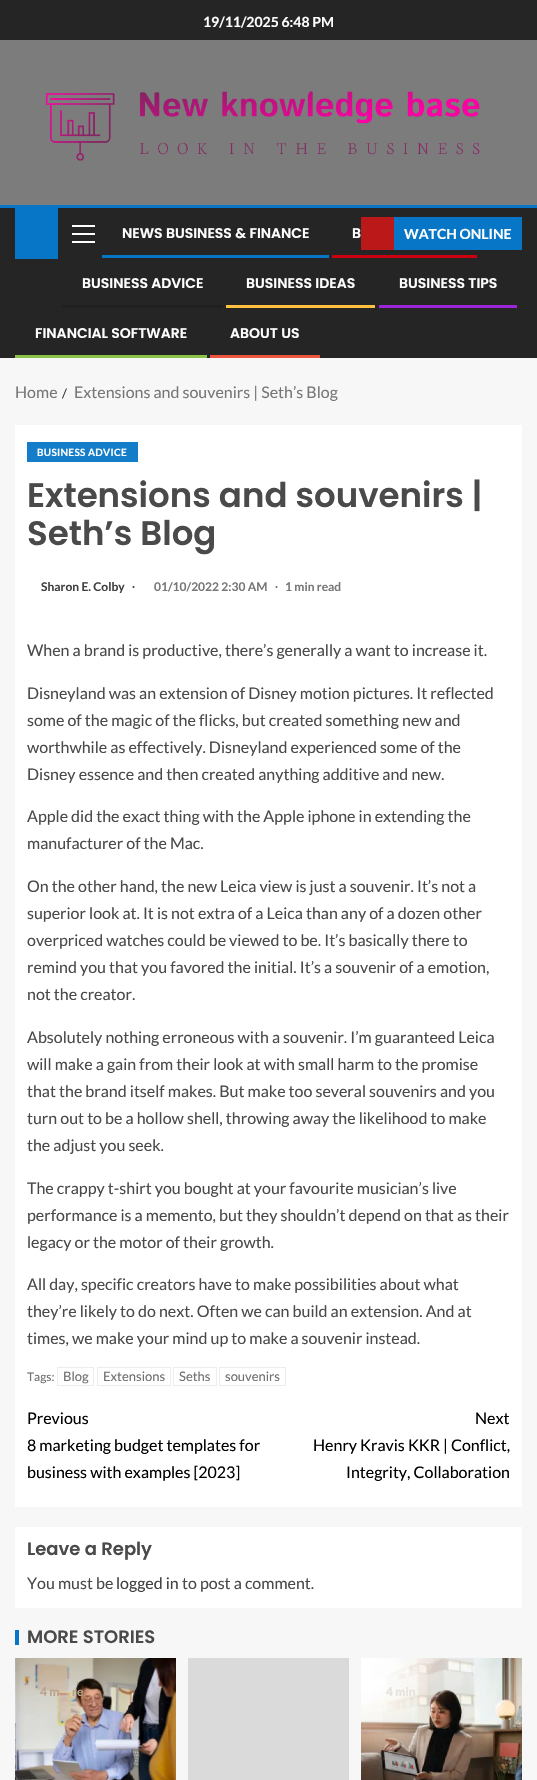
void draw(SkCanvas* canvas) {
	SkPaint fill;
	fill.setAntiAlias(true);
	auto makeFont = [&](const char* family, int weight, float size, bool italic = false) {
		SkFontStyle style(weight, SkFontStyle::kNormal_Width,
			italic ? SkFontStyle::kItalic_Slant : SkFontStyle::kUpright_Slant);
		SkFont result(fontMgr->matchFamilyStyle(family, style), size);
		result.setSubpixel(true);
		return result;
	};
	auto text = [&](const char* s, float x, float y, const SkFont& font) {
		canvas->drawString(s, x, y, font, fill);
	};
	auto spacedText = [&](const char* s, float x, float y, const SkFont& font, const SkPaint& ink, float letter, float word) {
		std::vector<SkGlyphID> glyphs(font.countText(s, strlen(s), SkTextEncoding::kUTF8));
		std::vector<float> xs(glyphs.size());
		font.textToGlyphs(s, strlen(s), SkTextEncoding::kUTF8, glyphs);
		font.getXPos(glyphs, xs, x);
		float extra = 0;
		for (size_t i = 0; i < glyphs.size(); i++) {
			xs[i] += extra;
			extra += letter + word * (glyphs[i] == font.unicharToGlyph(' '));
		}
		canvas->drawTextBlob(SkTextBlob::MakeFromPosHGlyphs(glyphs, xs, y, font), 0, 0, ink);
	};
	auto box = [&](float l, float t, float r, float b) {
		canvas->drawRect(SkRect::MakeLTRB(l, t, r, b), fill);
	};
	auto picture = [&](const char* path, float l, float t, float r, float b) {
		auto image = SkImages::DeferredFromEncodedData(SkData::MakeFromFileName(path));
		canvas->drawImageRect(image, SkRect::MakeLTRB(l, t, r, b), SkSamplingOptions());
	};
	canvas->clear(0xFFF7F7F7);
	fill.setColor(0xFF252525);
	box(0, 0, 537, 40);
	fill.setColor(0xFF7C7C7C);
	box(0, 40, 537, 205);
	picture("image0.png", 45, 91, 480, 161);
	fill.setColor(0xFF252525);
	box(0, 208, 537, 358);
	fill.setColor(0xFF0776C6);
	box(0, 205, 537, 208);
	box(15, 208, 58, 259);
	fill.setColor(0xFFFFFFFF);
	box(72, 233, 95, 235);
	box(72, 225, 95, 227);
	box(72, 241, 95, 243);
	fill.setColor(0xFF0776C6);
	box(102, 255, 329, 258);
	fill.setColor(0xFFCC0010);
	box(332, 255, 477, 258);
	fill.setColor(0xFF202020);
	box(62, 305, 223, 308);
	fill.setColor(0xFFFFBF3F);
	box(226, 305, 375, 308);
	fill.setColor(0xFF9C27D9);
	box(379, 305, 517, 308);
	fill.setColor(0xFF8BC34A);
	box(15, 355, 207, 358);
	fill.setColor(0xFFED553F);
	box(210, 355, 320, 358);
	fill.setColor(0xFFBB1919);
	box(361, 217, 394, 250);
	fill.setColor(0xFF0776C6);
	box(394, 217, 522, 250);
	fill.setColor(0xFFFFFFFF);
	box(15, 425, 522, 1507);
	fill.setColor(0xFF137DC9);
	box(27, 442, 138, 462);
	fill.setStyle(SkPaint::kStroke_Style);
	fill.setStrokeWidth(1);
	fill.setColor(0xFFECECEC);
	canvas->drawRect(SkRect::MakeLTRB(57.5f, 1367.5f, 93.5f, 1385.5f), fill);
	canvas->drawRect(SkRect::MakeLTRB(97.5f, 1367.5f, 170.5f, 1385.5f), fill);
	canvas->drawRect(SkRect::MakeLTRB(173.5f, 1367.5f, 216.5f, 1385.5f), fill);
	canvas->drawRect(SkRect::MakeLTRB(219.5f, 1367.5f, 285.5f, 1385.5f), fill);
	fill.setStyle(SkPaint::kFill_Style);
	fill.setColor(0xFFFFFFFF);
	box(15, 1527, 522, 1608);
	fill.setColor(0xFF0776C6);
	box(15, 1630, 19, 1645);
	picture("image1.png", 15, 1658, 176, 1780);
	fill.setColor(0xFFDADADA);
	box(188, 1658, 349, 1780);
	picture("image2.png", 361, 1658, 522, 1780);
	auto font1 = makeFont("Lato", 700, 14);
	fill.setColor(0xFFFFFFFF);
	text("19/11/2025 6:48 PM", 203, 27, font1);
	auto font2 = makeFont("Poppins", 600, 14);
	text("NEWS BUSINESS & FINANCE", 122, 238, font2);
	text("B", 352, 238, font2);
	text("BUSINESS ADVICE", 82, 288, font2);
	text("BUSINESS IDEAS", 246, 288, font2);
	text("BUSINESS TIPS", 399, 288, font2);
	text("FINANCIAL SOFTWARE", 35, 338, font2);
	text("ABOUT US", 230, 338, font2);
	text("WATCH ONLINE", 404, 239, font1);
	auto font3 = makeFont("Lato", 400, 16);
	fill.setColor(0xFF777777);
	text("Home", 15, 398, font3);
	auto font4 = makeFont("Lato", 400, 13);
	fill.setColor(0xFF393E46);
	text("/", 62, 398, font4);
	fill.setColor(0xFF777777);
	text("Extensions and souvenirs | Seth’s Blog", 74, 398, font3);
	auto font5 = makeFont("Lato", 700, 10);
	fill.setColor(0xFFFFFFFF);
	spacedText("BUSINESS ADVICE", 37, 456, font5, fill, 0.3f, 0);
	auto font6 = makeFont("Poppins", 600, 34);
	fill.setColor(0xFF4A4A4A);
	text("Extensions and souvenirs |", 27, 507, font6);
	text("Seth’s Blog", 27, 545, font6);
	auto font7 = makeFont("Lato", 700, 12);
	fill.setColor(0xFF404040);
	text("Sharon E. Colby", 41, 591, font7);
	auto font8 = makeFont("Liberation Serif", 700, 12);
	fill.setColor(0xFF4A4A4A);
	text("∙", 132, 591, font8);
	fill.setColor(0xFF777777);
	text("01/10/2022 2:30 AM", 154, 591, font7);
	text("∙", 275, 591, font8);
	text("1 min read", 285, 591, font7);
	fill.setColor(0xFF4A4A4A);
	text("When a brand is productive, there’s generally a want to increase it.", 27, 656, font3);
	text("Disneyland was an extension of Disney motion pictures. It reflected", 27, 699, font3);
	text("some of the magic of the flicks, but created something new and", 27, 726, font3);
	text("worthwhile as effectively. Disneyland experienced some of the", 27, 753, font3);
	text("Disney essence and then created anything additive and new.", 27, 780, font3);
	text("Apple did the exact thing with the Apple iphone in extending the", 27, 822, font3);
	text("manufacturer of the Mac.", 27, 849, font3);
	text("On the other hand, the new Leica view is just a souvenir. It’s not a", 27, 892, font3);
	text("superior look at. It is not extra of a Leica than any of a dozen other", 27, 919, font3);
	text("overpriced watches could be viewed to be. It’s basically there to", 27, 946, font3);
	text("remind you that you favored the initial. It’s a souvenir of a emotion,", 27, 973, font3);
	text("not the creator.", 27, 1000, font3);
	text("Absolutely nothing erroneous with a souvenir. I’m guaranteed Leica", 27, 1043, font3);
	text("will make a gain from their look at with small harm to the promise", 27, 1070, font3);
	text("that the brand itself makes. But make too several souvenirs and you", 27, 1097, font3);
	text("turn out to be a hollow shell, throwing away the likelihood to make", 27, 1124, font3);
	text("the adjust you seek.", 27, 1151, font3);
	text("The crappy t-shirt you bought at your favourite musician’s live", 27, 1194, font3);
	text("performance is a memento, but they shouldn’t depend on that as their", 27, 1221, font3);
	text("legacy or the motor of their growth.", 27, 1248, font3);
	text("All day, specific creators have to make possibilities about what", 27, 1290, font3);
	text("they’re likely to do next. Often we can build an extension. And at", 27, 1317, font3);
	text("times, we make your mind up to make a souvenir instead.", 27, 1344, font3);
	auto font9 = makeFont("Lato", 400, 12);
	fill.setColor(0xFF707070);
	text("Tags:", 27, 1381, font9);
	text("Blog", 63, 1381, font4);
	text("Extensions", 103, 1381, font4);
	text("Seths", 179, 1381, font4);
	text("souvenirs", 225, 1381, font4);
	fill.setColor(0xFF000000);
	text("Previous", 27, 1424, font3);
	text("8 marketing budget templates for", 27, 1451, font3);
	text("business with examples [2023]", 27, 1478, font3);
	text("Next", 475, 1424, font3);
	text("Henry Kravis KKR | Conflict,", 313, 1451, font3);
	text("Integrity, Collaboration", 346, 1478, font3);
	auto font10 = makeFont("Poppins", 600, 18);
	fill.setColor(0xFF4A4A4A);
	text("Leave a Reply", 27, 1555, font10);
	text("You must be", 27, 1589, font3);
	fill.setColor(0xFF404040);
	text("logged in", 116, 1589, font3);
	fill.setColor(0xFF4A4A4A);
	text("to post a comment.", 182, 1589, font3);
	text("MORE STORIES", 27, 1643, font10);
	fill.setColor(0xFFB9A08B);
	text("4 m", 40, 1696, font7);
	text("re", 72, 1696, font7);
	fill.setColor(0xFFE5E1DC);
	text("4 min", 386, 1696, font7);
}
